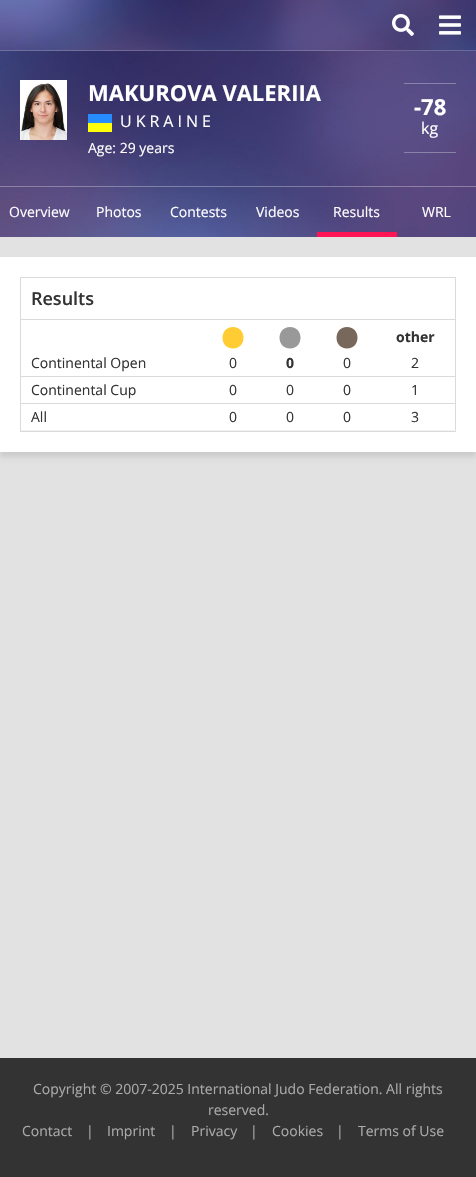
void draw(SkCanvas* canvas) {
	SkPaint fill;
	fill.setAntiAlias(true);
	auto makeFont = [&](const char* family, int weight, float size, bool italic = false) {
		SkFontStyle style(weight, SkFontStyle::kNormal_Width,
			italic ? SkFontStyle::kItalic_Slant : SkFontStyle::kUpright_Slant);
		SkFont result(fontMgr->matchFamilyStyle(family, style), size);
		result.setSubpixel(true);
		return result;
	};
	auto text = [&](const char* s, float x, float y, const SkFont& font) {
		canvas->drawString(s, x, y, font, fill);
	};
	auto spacedText = [&](const char* s, float x, float y, const SkFont& font, const SkPaint& ink, float letter, float word) {
		std::vector<SkGlyphID> glyphs(font.countText(s, strlen(s), SkTextEncoding::kUTF8));
		std::vector<float> xs(glyphs.size());
		font.textToGlyphs(s, strlen(s), SkTextEncoding::kUTF8, glyphs);
		font.getXPos(glyphs, xs, x);
		float extra = 0;
		for (size_t i = 0; i < glyphs.size(); i++) {
			xs[i] += extra;
			extra += letter + word * (glyphs[i] == font.unicharToGlyph(' '));
		}
		canvas->drawTextBlob(SkTextBlob::MakeFromPosHGlyphs(glyphs, xs, y, font), 0, 0, ink);
	};
	auto box = [&](float l, float t, float r, float b) {
		canvas->drawRect(SkRect::MakeLTRB(l, t, r, b), fill);
	};
	auto picture = [&](const char* path, float l, float t, float r, float b) {
		auto image = SkImages::DeferredFromEncodedData(SkData::MakeFromFileName(path));
		canvas->drawImageRect(image, SkRect::MakeLTRB(l, t, r, b), SkSamplingOptions());
	};
	canvas->clear(0xFFE2E2E2);
	picture("image0.png", 0, 0, 476, 51);
	fill.setColor(0x33FFFFFF);
	box(0, 50, 476, 51);
	picture("image1.png", 392, 14, 414, 36);
	picture("image2.png", 439, 15, 461, 35);
	picture("image3.png", 0, 51, 476, 237);
	picture("image4.png", 20, 80, 67, 140);
	picture("image5.png", 88, 114, 112, 132);
	fill.setColor(0x4DFFFFFF);
	box(404, 83, 456, 84);
	box(404, 152, 456, 153);
	box(0, 186, 476, 187);
	fill.setColor(0xFFFF1553);
	box(317, 232, 397, 237);
	fill.setColor(0x1A000000);
	fill.setMaskFilter(SkMaskFilter::MakeBlur(kNormal_SkBlurStyle, 2.5f));
	canvas->drawRect(SkRect::MakeLTRB(0, 262, 476, 457), fill);
	fill.setMaskFilter(nullptr);
	fill.setColor(0xFFFFFFFF);
	box(0, 257, 476, 452);
	fill.setStyle(SkPaint::kStroke_Style);
	fill.setStrokeWidth(1);
	fill.setColor(0xFFDADADA);
	canvas->drawRect(SkRect::MakeLTRB(20.5f, 277.5f, 455.5f, 431.5f), fill);
	fill.setStyle(SkPaint::kFill_Style);
	box(21, 319, 455, 320);
	fill.setColor(0xFFFFCC33);
	canvas->drawPath(SkPathBuilder().moveTo(233, 327).cubicTo(219, 327, 219, 348.5f, 233, 348.5f).cubicTo(247, 348.5f, 247, 327, 233, 327).close().detach(), fill);
	fill.setColor(0xFF999999);
	canvas->drawPath(SkPathBuilder().moveTo(290, 327).cubicTo(276, 327, 276, 348.5f, 290, 348.5f).cubicTo(304, 348.5f, 304, 327, 290, 327).close().detach(), fill);
	fill.setColor(0xFF78685B);
	canvas->drawPath(SkPathBuilder().moveTo(347, 327).cubicTo(333, 327, 333, 348.5f, 347, 348.5f).cubicTo(361, 348.5f, 361, 327, 347, 327).close().detach(), fill);
	fill.setColor(0xFFDADADA);
	box(21, 376, 456, 377);
	box(21, 403, 456, 404);
	fill.setColor(0xFFF2F2F2);
	box(21, 430, 456, 431);
	fill.setColor(0xFF333333);
	box(0, 1058, 476, 1177);
	auto font1 = makeFont("Open Sans", 700, 22);
	fill.setColor(0xFFFFFFFF);
	text("MAKUROVA VALERIIA", 88, 101, font1);
	auto font2 = makeFont("Open Sans", 400, 16);
	spacedText("UKRAINE", 120, 127, font2, fill, 4, 0);
	auto font3 = makeFont("Open Sans", 400, 14);
	text("Age: 29 years", 88, 153, font3);
	text("-78", 414, 115, font1);
	text("kg", 421, 134, font2);
	text("Overview", 9, 217, font3);
	text("Photos", 96, 217, font3);
	text("Contests", 170, 217, font3);
	text("Videos", 256, 217, font3);
	text("Results", 333, 217, font3);
	text("WRL", 422, 217, font3);
	auto font4 = makeFont("Open Sans", 600, 18);
	fill.setColor(0xFF333333);
	text("Results", 31, 305, font4);
	auto font5 = makeFont("Open Sans", 700, 14);
	text("other", 396, 342, font5);
	text("Continental Open", 31, 368, font3);
	text("0", 229, 368, font3);
	text("0", 286, 368, font5);
	text("0", 343, 368, font3);
	text("2", 411, 368, font3);
	text("Continental Cup", 31, 395, font3);
	text("0", 229, 395, font3);
	text("0", 286, 395, font3);
	text("0", 343, 395, font3);
	text("1", 411, 395, font3);
	text("All", 31, 422, font3);
	text("0", 229, 422, font3);
	text("0", 286, 422, font3);
	text("0", 343, 422, font3);
	text("3", 411, 422, font3);
	fill.setColor(0xFFAAAAAA);
	text("Copyright © 2007-2025 International Judo Federation. All rights", 33, 1094, font3);
	text("reserved.", 208, 1115, font3);
	text("Contact", 22, 1136, font3);
	text("|", 86, 1136, font3);
	text("Imprint", 107, 1136, font3);
	text("|", 169, 1136, font3);
	text("Privacy", 191, 1136, font3);
	text("|", 250, 1136, font3);
	text("Cookies", 272, 1136, font3);
	text("|", 336, 1136, font3);
	text("Terms of Use", 358, 1136, font3);
}
